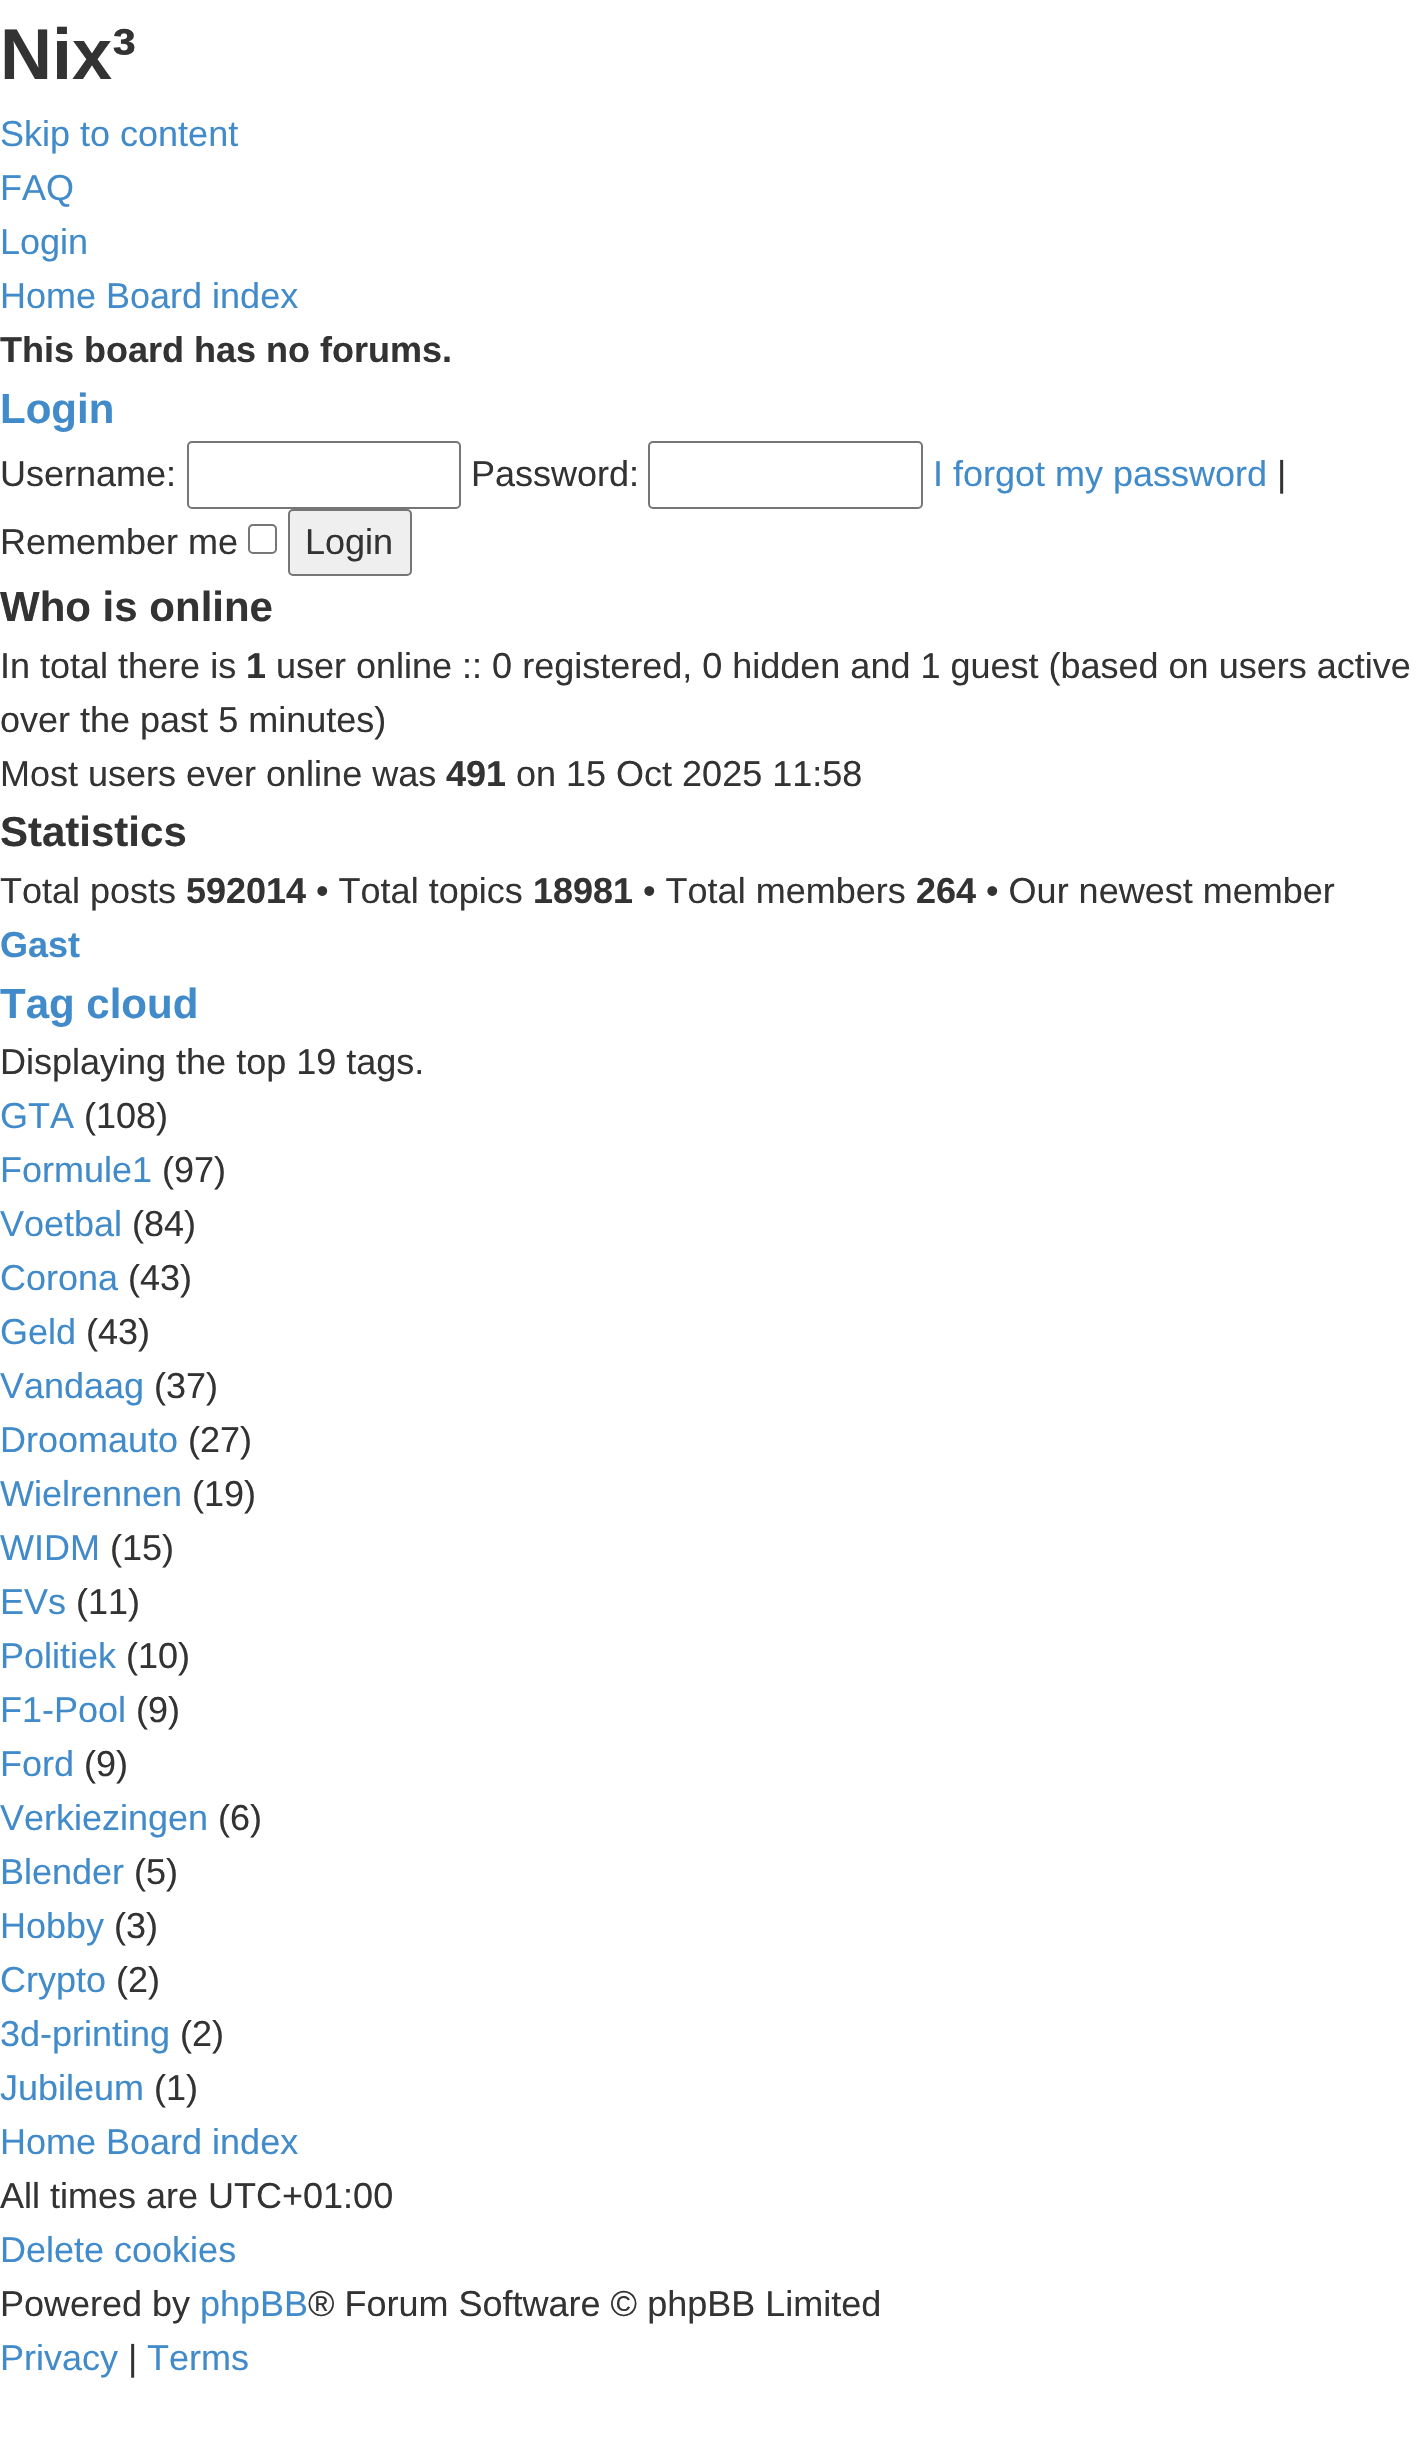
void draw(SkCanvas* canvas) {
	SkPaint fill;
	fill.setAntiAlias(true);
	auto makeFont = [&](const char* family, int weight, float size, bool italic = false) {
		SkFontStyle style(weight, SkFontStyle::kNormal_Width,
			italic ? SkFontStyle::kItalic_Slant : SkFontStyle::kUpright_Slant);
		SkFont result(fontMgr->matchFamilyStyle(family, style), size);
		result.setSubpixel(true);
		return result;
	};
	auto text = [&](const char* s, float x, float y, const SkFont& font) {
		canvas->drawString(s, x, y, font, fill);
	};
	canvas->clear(0xFFFFFFFF);
	fill.setStyle(SkPaint::kStroke_Style);
	fill.setStrokeWidth(2);
	fill.setColor(0xFF767676);
	canvas->drawRoundRect(SkRect::MakeLTRB(188, 442, 460, 508), 4, 4, fill);
	canvas->drawRoundRect(SkRect::MakeLTRB(649, 442, 922, 508), 4, 4, fill);
	canvas->drawRoundRect(SkRect::MakeLTRB(249, 525, 276, 553), 4, 4, fill);
	fill.setStyle(SkPaint::kFill_Style);
	fill.setColor(0xFFEFEFEF);
	canvas->drawRoundRect(SkRect::MakeLTRB(289, 510, 411, 575), 4, 4, fill);
	fill.setStyle(SkPaint::kStroke_Style);
	fill.setColor(0xFF767676);
	canvas->drawRoundRect(SkRect::MakeLTRB(289, 510, 411, 575), 4, 4, fill);
	auto font1 = makeFont("Liberation Sans", 700, 72);
	fill.setStyle(SkPaint::kFill_Style);
	fill.setColor(0xFF333333);
	text("Nix³", 0, 79, font1);
	auto font2 = makeFont("Liberation Sans", 400, 36);
	fill.setColor(0xFF428BCA);
	text("Skip to content", 0, 146, font2);
	text("FAQ", 0, 200, font2);
	text("Login", 0, 254, font2);
	text("Home Board index", 0, 308, font2);
	auto font3 = makeFont("Liberation Sans", 700, 36);
	fill.setColor(0xFF333333);
	text("This board has no forums.", 0, 362, font3);
	auto font4 = makeFont("Liberation Sans", 700, 42);
	fill.setColor(0xFF428BCA);
	text("Login", 0, 423, font4);
	fill.setColor(0xFF333333);
	text("Username:", 0, 486, font2);
	text("Password:", 471, 486, font2);
	fill.setColor(0xFF428BCA);
	text("I forgot my password", 933, 486, font2);
	fill.setColor(0xFF333333);
	text("|", 1277, 486, font2);
	text("Remember me", 0, 554, font2);
	text("Login", 305, 554, font2);
	text("Who is online", 0, 621, font4);
	text("In total there is", 0, 678, font2);
	text("1", 246, 678, font3);
	text("user online :: 0 registered, 0 hidden and 1 guest (based on users active", 276, 678, font2);
	text("over the past 5 minutes)", 0, 732, font2);
	text("Most users ever online was", 0, 786, font2);
	text("491", 446, 786, font3);
	text("on 15 Oct 2025 11:58", 516, 786, font2);
	text("Statistics", 0, 846, font4);
	text("Total posts", 0, 903, font2);
	text("592014", 186, 903, font3);
	text("• Total topics", 316, 903, font2);
	text("18981", 533, 903, font3);
	text("• Total members", 643, 903, font2);
	text("264", 916, 903, font3);
	text("• Our newest member", 986, 903, font2);
	fill.setColor(0xFF428BCA);
	text("Gast", 0, 957, font3);
	text("Tag cloud", 0, 1018, font4);
	fill.setColor(0xFF333333);
	text("Displaying the top 19 tags.", 0, 1074, font2);
	fill.setColor(0xFF428BCA);
	text("GTA", 0, 1128, font2);
	fill.setColor(0xFF333333);
	text("(108)", 84, 1128, font2);
	fill.setColor(0xFF428BCA);
	text("Formule1", 0, 1182, font2);
	fill.setColor(0xFF333333);
	text("(97)", 162, 1182, font2);
	fill.setColor(0xFF428BCA);
	text("Voetbal", 0, 1236, font2);
	fill.setColor(0xFF333333);
	text("(84)", 132, 1236, font2);
	fill.setColor(0xFF428BCA);
	text("Corona", 0, 1290, font2);
	fill.setColor(0xFF333333);
	text("(43)", 128, 1290, font2);
	fill.setColor(0xFF428BCA);
	text("Geld", 0, 1344, font2);
	fill.setColor(0xFF333333);
	text("(43)", 86, 1344, font2);
	fill.setColor(0xFF428BCA);
	text("Vandaag", 0, 1398, font2);
	fill.setColor(0xFF333333);
	text("(37)", 154, 1398, font2);
	fill.setColor(0xFF428BCA);
	text("Droomauto", 0, 1452, font2);
	fill.setColor(0xFF333333);
	text("(27)", 188, 1452, font2);
	fill.setColor(0xFF428BCA);
	text("Wielrennen", 0, 1506, font2);
	fill.setColor(0xFF333333);
	text("(19)", 192, 1506, font2);
	fill.setColor(0xFF428BCA);
	text("WIDM", 0, 1560, font2);
	fill.setColor(0xFF333333);
	text("(15)", 110, 1560, font2);
	fill.setColor(0xFF428BCA);
	text("EVs", 0, 1614, font2);
	fill.setColor(0xFF333333);
	text("(11)", 76, 1614, font2);
	fill.setColor(0xFF428BCA);
	text("Politiek", 0, 1668, font2);
	fill.setColor(0xFF333333);
	text("(10)", 126, 1668, font2);
	fill.setColor(0xFF428BCA);
	text("F1-Pool", 0, 1722, font2);
	fill.setColor(0xFF333333);
	text("(9)", 136, 1722, font2);
	fill.setColor(0xFF428BCA);
	text("Ford", 0, 1776, font2);
	fill.setColor(0xFF333333);
	text("(9)", 84, 1776, font2);
	fill.setColor(0xFF428BCA);
	text("Verkiezingen", 0, 1830, font2);
	fill.setColor(0xFF333333);
	text("(6)", 218, 1830, font2);
	fill.setColor(0xFF428BCA);
	text("Blender", 0, 1884, font2);
	fill.setColor(0xFF333333);
	text("(5)", 134, 1884, font2);
	fill.setColor(0xFF428BCA);
	text("Hobby", 0, 1938, font2);
	fill.setColor(0xFF333333);
	text("(3)", 114, 1938, font2);
	fill.setColor(0xFF428BCA);
	text("Crypto", 0, 1992, font2);
	fill.setColor(0xFF333333);
	text("(2)", 116, 1992, font2);
	fill.setColor(0xFF428BCA);
	text("3d-printing", 0, 2046, font2);
	fill.setColor(0xFF333333);
	text("(2)", 180, 2046, font2);
	fill.setColor(0xFF428BCA);
	text("Jubileum", 0, 2100, font2);
	fill.setColor(0xFF333333);
	text("(1)", 154, 2100, font2);
	fill.setColor(0xFF428BCA);
	text("Home Board index", 0, 2154, font2);
	fill.setColor(0xFF333333);
	text("All times are UTC+01:00", 0, 2208, font2);
	fill.setColor(0xFF428BCA);
	text("Delete cookies", 0, 2262, font2);
	fill.setColor(0xFF333333);
	text("Powered by", 0, 2316, font2);
	fill.setColor(0xFF428BCA);
	text("phpBB", 200, 2316, font2);
	fill.setColor(0xFF333333);
	text("® Forum Software © phpBB Limited", 308, 2316, font2);
	fill.setColor(0xFF428BCA);
	text("Privacy", 0, 2370, font2);
	fill.setColor(0xFF333333);
	text("|", 128, 2370, font2);
	fill.setColor(0xFF428BCA);
	text("Terms", 147, 2370, font2);
}
